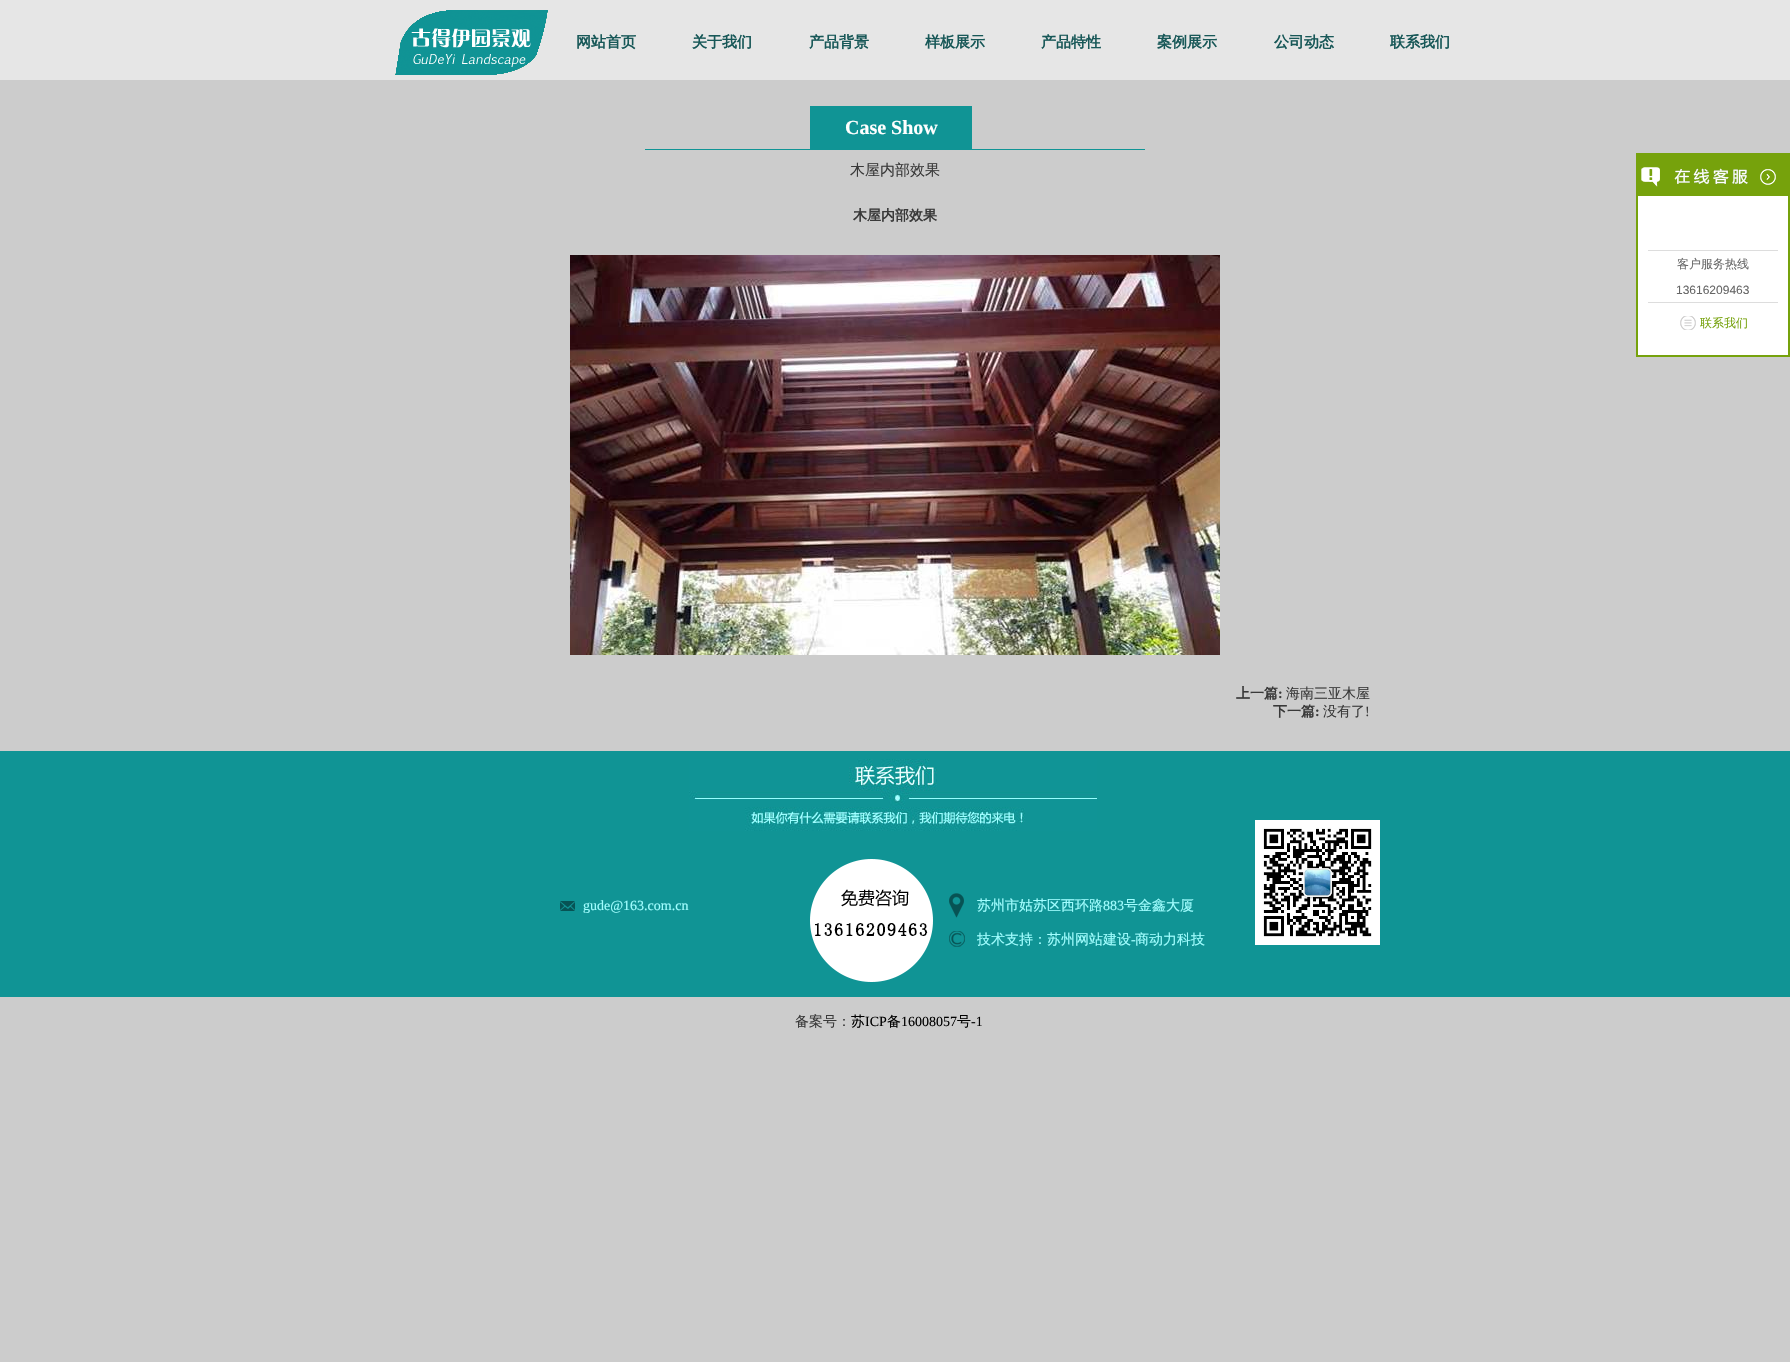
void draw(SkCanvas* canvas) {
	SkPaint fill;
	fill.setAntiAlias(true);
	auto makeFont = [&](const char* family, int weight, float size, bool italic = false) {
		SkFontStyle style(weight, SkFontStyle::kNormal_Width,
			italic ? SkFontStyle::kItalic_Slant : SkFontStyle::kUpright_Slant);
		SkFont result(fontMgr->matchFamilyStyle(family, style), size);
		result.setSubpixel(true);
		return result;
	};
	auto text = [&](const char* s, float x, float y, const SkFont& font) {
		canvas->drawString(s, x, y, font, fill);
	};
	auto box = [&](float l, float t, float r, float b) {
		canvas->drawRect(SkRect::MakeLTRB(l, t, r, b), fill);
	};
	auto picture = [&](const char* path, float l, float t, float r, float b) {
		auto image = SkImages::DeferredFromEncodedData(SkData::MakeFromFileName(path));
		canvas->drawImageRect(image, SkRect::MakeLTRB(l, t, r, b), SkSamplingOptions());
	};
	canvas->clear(0xFFCCCCCC);
	fill.setColor(0xFFE6E6E6);
	box(0, 0, 1790, 80);
	picture("image0.png", 395, 10, 548, 75);
	fill.setColor(0xFF109495);
	box(810, 106, 972, 150);
	box(645, 149, 810, 150);
	box(972, 149, 1145, 150);
	picture("image1.png", 570, 255, 1220, 655);
	picture("image2.png", 1636, 153, 1790, 199);
	picture("image3.png", 1760, 169, 1776, 185);
	picture("image4.png", 1636, 199, 1790, 349);
	fill.setColor(0xFFDDDDDD);
	box(1648, 250, 1778, 251);
	box(1648, 302, 1778, 303);
	picture("image5.png", 1680, 316, 1696, 330);
	picture("image6.png", 1636, 349, 1790, 357);
	fill.setColor(0xFF109495);
	box(0, 751, 1790, 997);
	picture("image7.png", 689, 759, 1097, 831);
	picture("image8.png", 560, 901, 575, 911);
	picture("image9.png", 810, 859, 933, 982);
	picture("image10.png", 949, 893, 964, 918);
	picture("image11.png", 949, 931, 965, 947);
	picture("image12.png", 1255, 820, 1380, 945);
	auto font1 = makeFont("WenQuanYi Zen Hei", 700, 15);
	fill.setColor(0xFF185858);
	text("网站首页", 576, 47, font1);
	text("关于我们", 692, 47, font1);
	text("产品背景", 809, 47, font1);
	text("样板展示", 925, 47, font1);
	text("产品特性", 1041, 47, font1);
	text("案例展示", 1157, 47, font1);
	text("公司动态", 1274, 47, font1);
	text("联系我们", 1390, 47, font1);
	auto font2 = makeFont("Liberation Serif", 700, 20);
	fill.setColor(0xFFFFFFFF);
	text("Case Show", 845, 134, font2);
	auto font3 = makeFont("WenQuanYi Zen Hei", 500, 15);
	fill.setColor(0xFF393939);
	text("木屋内部效果", 850, 175, font3);
	auto font4 = makeFont("WenQuanYi Zen Hei", 700, 14);
	text("木屋内部效果", 853, 220, font4);
	text("上一篇", 1236, 698, font4);
	auto font5 = makeFont("Liberation Serif", 700, 14);
	text(":", 1278, 698, font5);
	auto font6 = makeFont("WenQuanYi Zen Hei", 500, 14);
	text("海南三亚木屋", 1286, 698, font6);
	text("下一篇", 1273, 716, font4);
	text(":", 1315, 716, font5);
	text("没有了", 1323, 716, font6);
	auto font7 = makeFont("Liberation Serif", 400, 14);
	text("!", 1365, 716, font7);
	auto font8 = makeFont("WenQuanYi Zen Hei", 500, 12);
	fill.setColor(0xFF666666);
	text("客户服务热线", 1677, 268, font8);
	auto font9 = makeFont("Liberation Sans", 400, 12);
	text("13616209463", 1676, 294, font9);
	fill.setColor(0xFF76A20C);
	text("联系我们", 1700, 327, font8);
	fill.setColor(0xFFA1FEFF);
	text("gude@163.com.cn", 583, 910, font7);
	text("苏州市姑苏区西环路", 977, 910, font6);
	text("883", 1103, 910, font7);
	text("号金鑫大厦", 1124, 910, font6);
	text("技术支持：苏州网站建设", 977, 944, font6);
	text("-", 1131, 944, font7);
	text("商动力科技", 1135, 944, font6);
	fill.setColor(0xFF393939);
	text("备案号：", 795, 1026, font6);
	fill.setColor(0xFF000000);
	text("苏", 851, 1026, font6);
	text("ICP", 865, 1026, font7);
	text("备", 887, 1026, font6);
	text("16008057", 901, 1026, font7);
	text("号", 957, 1026, font6);
	text("-1", 971, 1026, font7);
}
